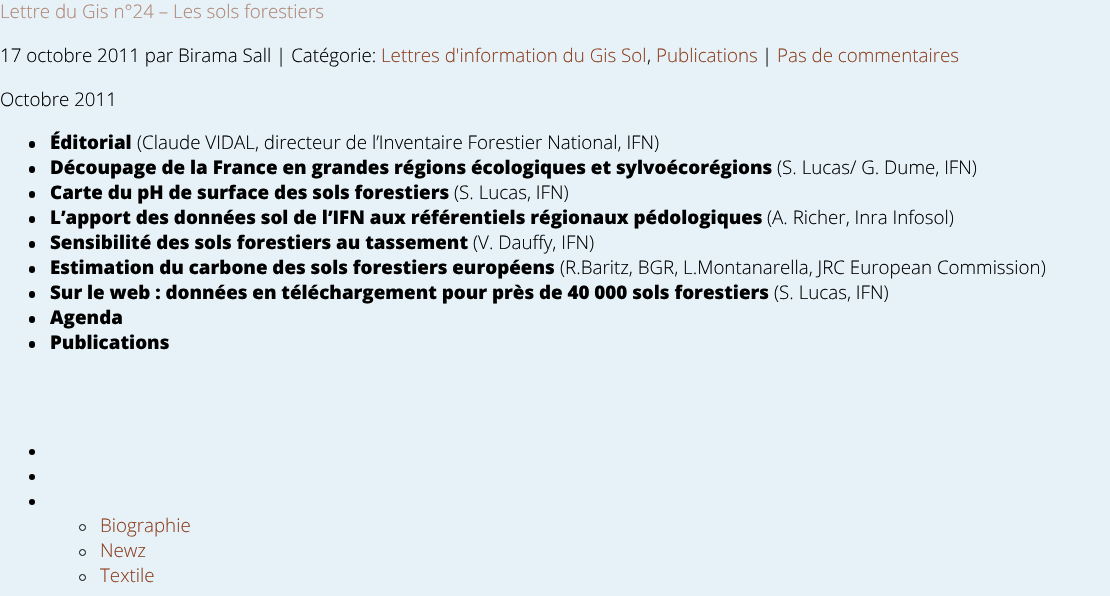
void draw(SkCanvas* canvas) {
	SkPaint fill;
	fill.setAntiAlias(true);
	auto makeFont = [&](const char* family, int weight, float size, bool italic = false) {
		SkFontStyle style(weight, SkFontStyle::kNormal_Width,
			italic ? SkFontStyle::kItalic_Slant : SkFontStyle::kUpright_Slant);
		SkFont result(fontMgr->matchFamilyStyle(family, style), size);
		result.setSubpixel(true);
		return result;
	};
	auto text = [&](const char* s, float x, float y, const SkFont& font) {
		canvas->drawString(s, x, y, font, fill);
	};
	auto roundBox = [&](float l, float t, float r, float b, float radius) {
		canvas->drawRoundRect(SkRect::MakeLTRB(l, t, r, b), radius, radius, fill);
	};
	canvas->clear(0xFFE6F2F7);
	fill.setColor(0xFF000000);
	roundBox(29, 141, 35, 148, 3);
	roundBox(29, 166, 35, 173, 3);
	roundBox(29, 191, 35, 198, 3);
	roundBox(29, 216, 35, 223, 3);
	roundBox(29, 241, 35, 248, 3);
	roundBox(29, 266, 35, 273, 3);
	roundBox(29, 291, 35, 298, 3);
	roundBox(29, 316, 35, 323, 3);
	roundBox(29, 341, 35, 348, 3);
	canvas->drawCircle(32, 452, 3, fill);
	canvas->drawCircle(32, 477, 3, fill);
	canvas->drawCircle(32, 502, 3, fill);
	fill.setStyle(SkPaint::kStroke_Style);
	fill.setStrokeWidth(1);
	canvas->drawCircle(82.5f, 527.5f, 3, fill);
	canvas->drawCircle(82.5f, 552.5f, 3, fill);
	canvas->drawCircle(82.5f, 577.5f, 3, fill);
	auto font1 = makeFont("Open Sans", 300, 18.75f);
	fill.setStyle(SkPaint::kFill_Style);
	fill.setColor(0xFFB18777);
	text("Lettre du Gis n°24 – Les sols forestiers", 0, 18, font1);
	fill.setColor(0xFF000000);
	text("17 octobre 2011 par Birama Sall | Catégorie:", 0, 62, font1);
	fill.setColor(0xFF8D4021);
	text("Lettres d'information du Gis Sol", 381, 62, font1);
	fill.setColor(0xFF000000);
	text(",", 647, 62, font1);
	fill.setColor(0xFF8D4021);
	text("Publications", 656, 62, font1);
	fill.setColor(0xFF000000);
	text("|", 762, 62, font1);
	fill.setColor(0xFF8D4021);
	text("Pas de commentaires", 777, 62, font1);
	fill.setColor(0xFF000000);
	text("Octobre 2011", 0, 106, font1);
	auto font2 = makeFont("Open Sans", 800, 18.75f);
	text("Éditorial", 50, 149, font2);
	text("(Claude VIDAL, directeur de l’Inventaire Forestier National, IFN)", 137, 149, font1);
	text("Découpage de la France en grandes régions écologiques et sylvoécorégions", 50, 174, font2);
	text("(S. Lucas/ G. Dume, IFN)", 777, 174, font1);
	text("Carte du pH de surface des sols forestiers", 50, 199, font2);
	text("(S. Lucas, IFN)", 454, 199, font1);
	text("L’apport des données sol de l’IFN aux référentiels régionaux pédologiques", 50, 224, font2);
	text("(A. Richer, Inra Infosol)", 767, 224, font1);
	text("Sensibilité des sols forestiers au tassement", 50, 249, font2);
	text("(V. Dauffy, IFN)", 473, 249, font1);
	text("Estimation du carbone des sols forestiers européens", 50, 274, font2);
	text("(R.Baritz, BGR, L.Montanarella, JRC European Commission)", 560, 274, font1);
	text("Sur le web : données en téléchargement pour près de 40 000 sols forestiers", 50, 299, font2);
	text("(S. Lucas, IFN)", 774, 299, font1);
	text("Agenda", 50, 324, font2);
	text("Publications", 50, 349, font2);
	fill.setColor(0xFF8D4021);
	text("Biographie", 100, 532, font1);
	text("Newz", 100, 557, font1);
	text("Textile", 100, 582, font1);
}
